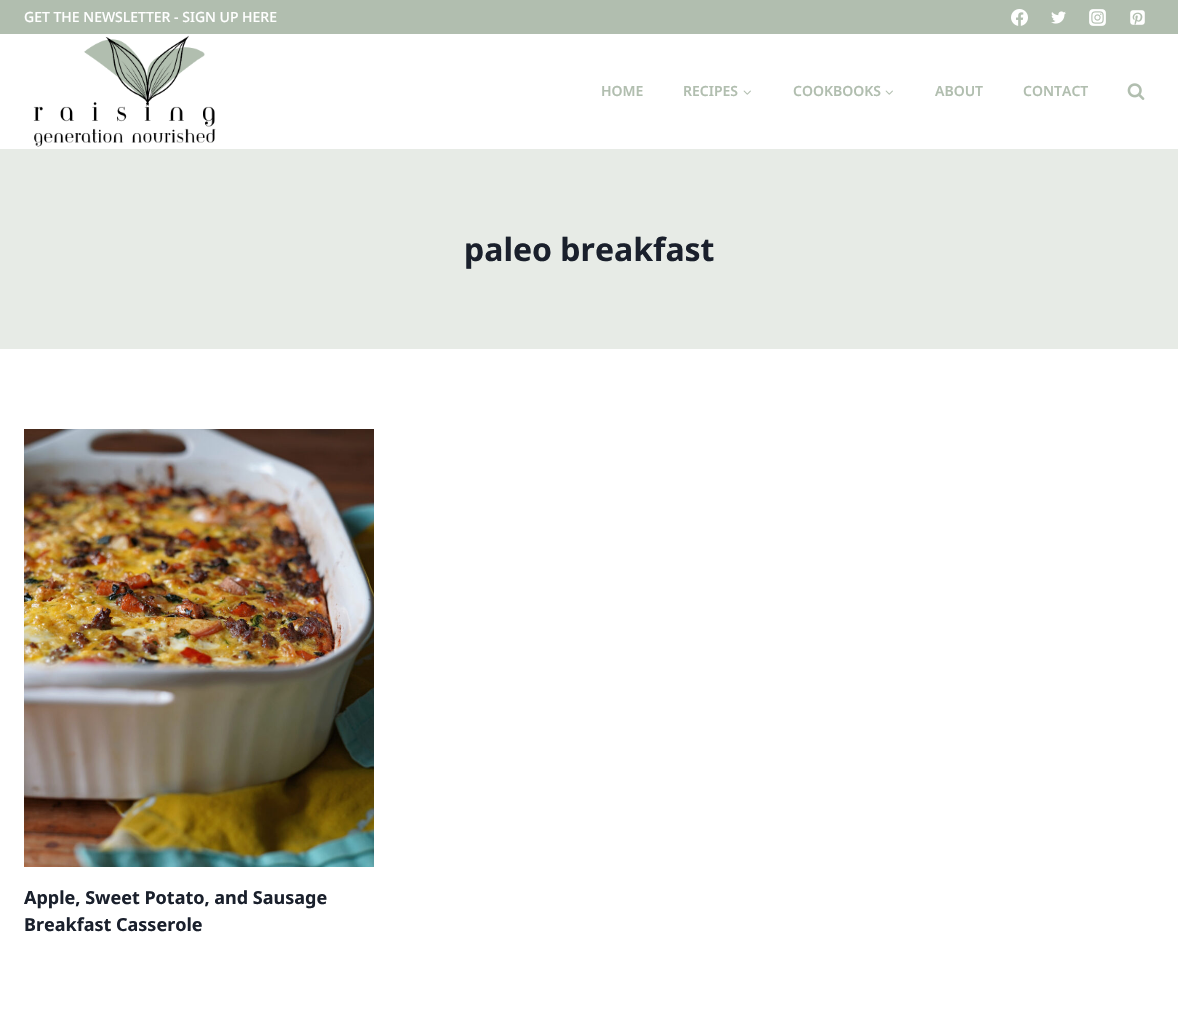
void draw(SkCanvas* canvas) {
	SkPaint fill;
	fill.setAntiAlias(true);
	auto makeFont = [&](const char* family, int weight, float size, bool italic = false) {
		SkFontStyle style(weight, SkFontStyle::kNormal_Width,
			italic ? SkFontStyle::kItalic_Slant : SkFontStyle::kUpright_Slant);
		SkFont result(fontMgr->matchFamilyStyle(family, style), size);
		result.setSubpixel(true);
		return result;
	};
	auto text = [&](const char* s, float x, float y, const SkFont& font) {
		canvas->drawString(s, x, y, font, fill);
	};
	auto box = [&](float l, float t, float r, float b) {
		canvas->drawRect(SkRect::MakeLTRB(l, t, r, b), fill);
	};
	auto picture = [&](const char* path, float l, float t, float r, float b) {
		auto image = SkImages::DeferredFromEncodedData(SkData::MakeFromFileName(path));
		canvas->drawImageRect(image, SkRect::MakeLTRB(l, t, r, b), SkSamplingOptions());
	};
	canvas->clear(0xFFFFFFFF);
	fill.setColor(0xFFB1BEAF);
	box(0, 0, 1178, 34);
	picture("image0.png", 1011, 9, 1028, 26);
	picture("image1.png", 1051, 11, 1066, 24);
	picture("image2.png", 1089, 9, 1106, 26);
	picture("image3.png", 1130, 10, 1145, 25);
	picture("image4.png", 33, 35, 216, 147);
	picture("image5.png", 743, 90, 751, 95);
	picture("image5.png", 885, 90, 893, 95);
	picture("image6.png", 1127, 83, 1145, 100);
	fill.setColor(0xFFE7EBE6);
	box(0, 149, 1178, 349);
	picture("image7.png", 24, 429, 374, 867);
	auto font1 = makeFont("Noto Sans", 500, 14);
	fill.setColor(0xFFFFFFFF);
	text("GET THE NEWSLETTER - SIGN UP HERE", 24, 22, font1);
	auto font2 = makeFont("Noto Sans", 600, 14);
	fill.setColor(0xFFB1BEAF);
	text("HOME", 601, 96, font2);
	text("RECIPES", 683, 96, font2);
	text("COOKBOOKS", 793, 96, font2);
	text("ABOUT", 935, 96, font2);
	text("CONTACT", 1023, 96, font2);
	auto font3 = makeFont("Noto Sans", 700, 32);
	fill.setColor(0xFF1A202C);
	text("paleo breakfast", 464, 261, font3);
	auto font4 = makeFont("Noto Sans", 700, 18);
	text("Apple, Sweet Potato, and Sausage", 24, 904, font4);
	text("Breakfast Casserole", 24, 931, font4);
}
